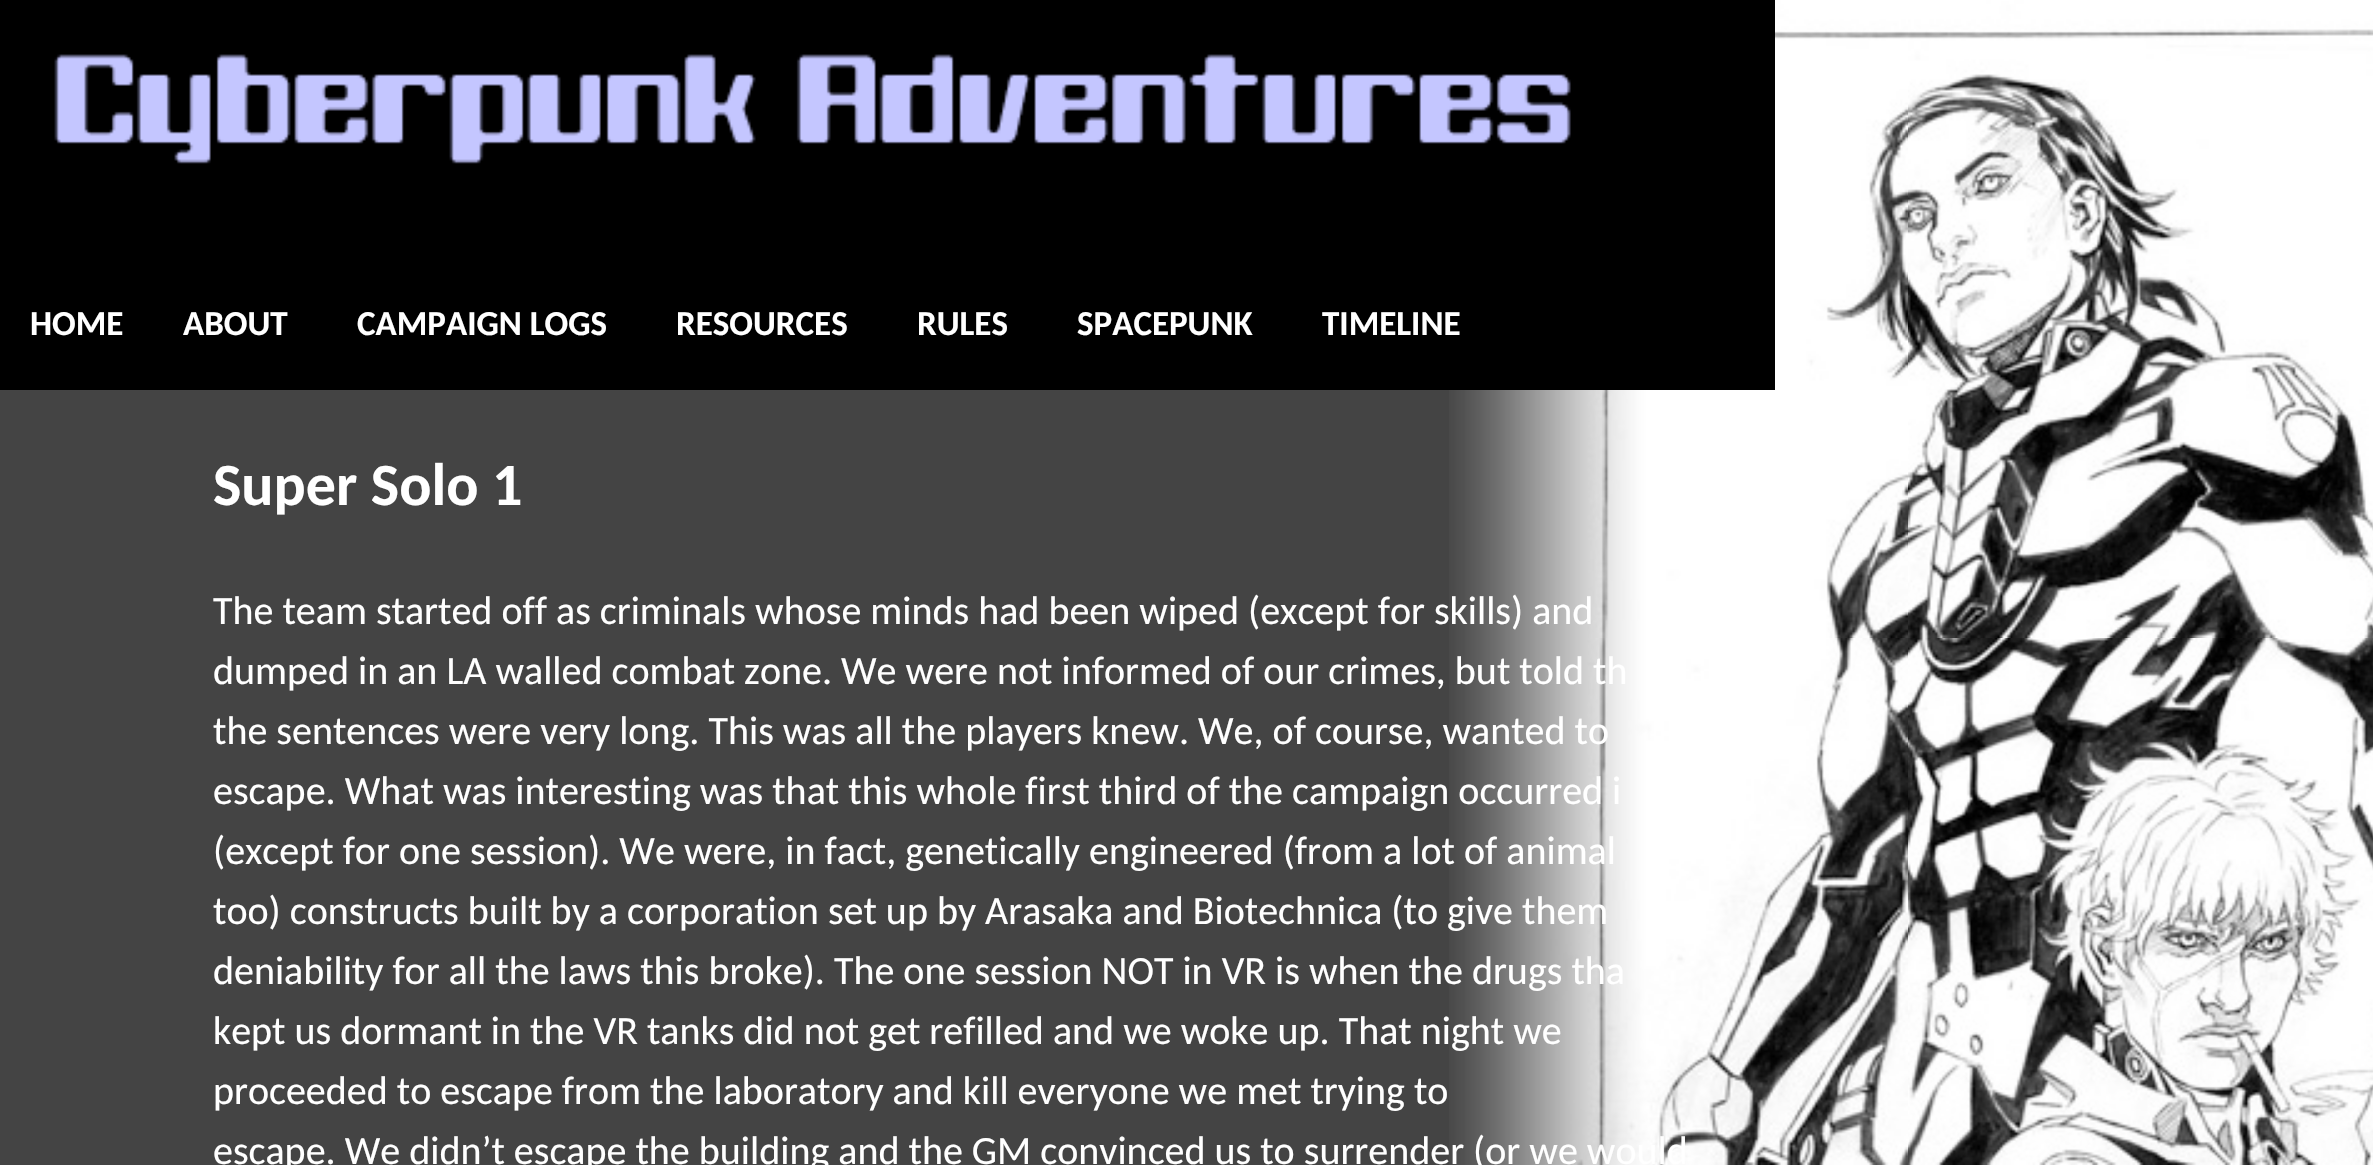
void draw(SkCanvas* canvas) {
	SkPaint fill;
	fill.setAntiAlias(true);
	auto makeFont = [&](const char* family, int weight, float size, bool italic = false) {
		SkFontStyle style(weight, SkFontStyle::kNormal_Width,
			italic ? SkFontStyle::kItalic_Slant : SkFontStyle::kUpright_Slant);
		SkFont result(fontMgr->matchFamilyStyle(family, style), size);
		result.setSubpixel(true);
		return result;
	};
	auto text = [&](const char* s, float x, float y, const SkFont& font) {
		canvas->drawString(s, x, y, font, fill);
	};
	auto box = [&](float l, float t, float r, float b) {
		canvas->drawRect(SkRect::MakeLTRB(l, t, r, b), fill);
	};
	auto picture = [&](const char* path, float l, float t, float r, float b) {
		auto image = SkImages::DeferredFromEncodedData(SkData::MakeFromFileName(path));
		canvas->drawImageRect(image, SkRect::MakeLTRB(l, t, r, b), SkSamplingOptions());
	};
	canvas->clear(0xFF444444);
	picture("image0.png", 1449, 0, 2373, 1165);
	fill.setColor(0xFF000000);
	box(0, 0, 1775, 390);
	picture("image1.png", 54, 54, 1571, 164);
	auto font1 = makeFont("Carlito", 700, 35);
	fill.setColor(0xFFFFFFFF);
	text("HOME", 30, 335, font1);
	text("ABOUT", 183, 335, font1);
	text("CAMPAIGN LOGS", 357, 335, font1);
	text("RESOURCES", 676, 335, font1);
	text("RULES", 917, 335, font1);
	text("SPACEPUNK", 1077, 335, font1);
	text("TIMELINE", 1322, 335, font1);
	auto font2 = makeFont("Carlito", 700, 60);
	text("Super Solo 1", 213, 505, font2);
	auto font3 = makeFont("Carlito", 400, 40);
	text("The team started off as criminals whose minds had been wiped (except for skills) and", 213, 624, font3);
	text("dumped in an LA walled combat zone. We were not informed of our crimes, but told th", 213, 684, font3);
	text("the sentences were very long. This was all the players knew. We, of course, wanted to", 213, 744, font3);
	text("escape. What was interesting was that this whole first third of the campaign occurred i", 213, 804, font3);
	text("(except for one session). We were, in fact, genetically engineered (from a lot of animal", 213, 864, font3);
	text("too) constructs built by a corporation set up by Arasaka and Biotechnica (to give them", 213, 924, font3);
	text("deniability for all the laws this broke). The one session NOT in VR is when the drugs tha", 213, 984, font3);
	text("kept us dormant in the VR tanks did not get refilled and we woke up. That night we", 213, 1044, font3);
	text("proceeded to escape from the laboratory and kill everyone we met trying to", 213, 1104, font3);
	text("escape. We didn’t escape the building and the GM convinced us to surrender (or we would", 213, 1164, font3);
}
